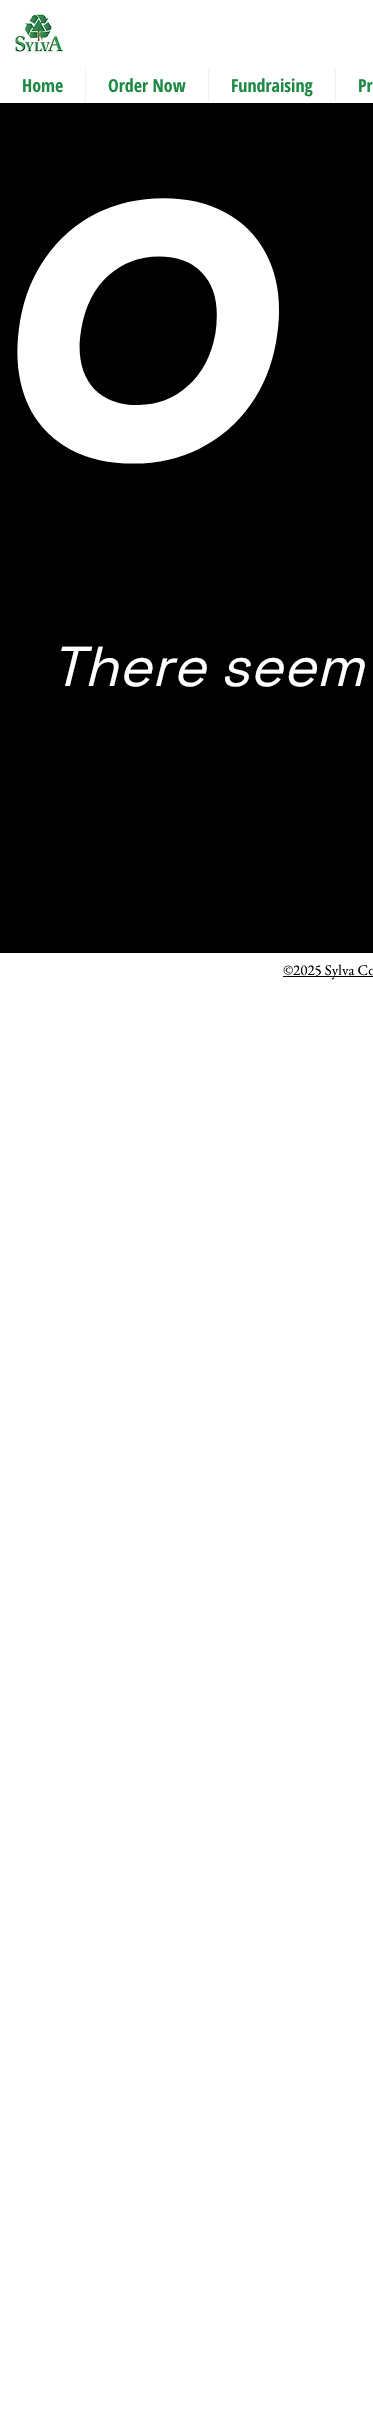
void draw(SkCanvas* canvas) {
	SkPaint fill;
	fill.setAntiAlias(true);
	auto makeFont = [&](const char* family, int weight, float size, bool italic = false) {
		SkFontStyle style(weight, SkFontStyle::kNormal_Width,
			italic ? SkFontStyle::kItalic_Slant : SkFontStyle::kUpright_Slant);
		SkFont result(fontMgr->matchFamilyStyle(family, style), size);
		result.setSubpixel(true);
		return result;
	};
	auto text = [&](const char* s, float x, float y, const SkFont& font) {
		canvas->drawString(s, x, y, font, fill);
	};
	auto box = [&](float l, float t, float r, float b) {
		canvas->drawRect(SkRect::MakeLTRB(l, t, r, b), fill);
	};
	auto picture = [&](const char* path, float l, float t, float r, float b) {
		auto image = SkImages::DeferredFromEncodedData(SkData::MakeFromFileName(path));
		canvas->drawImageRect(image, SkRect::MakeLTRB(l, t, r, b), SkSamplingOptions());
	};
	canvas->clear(0xFFFFFFFF);
	picture("image0.png", 12, 14, 64, 54);
	fill.setColor(0xFFF0F0F0);
	box(85, 69, 86, 101);
	box(208, 69, 209, 101);
	box(335, 69, 336, 101);
	fill.setColor(0xFF000000);
	box(0, 103, 373, 953);
	box(283, 976, 373, 977);
	auto font1 = makeFont("Open Sans Condensed", 700, 18);
	fill.setColor(0xFF1C8A43);
	text("Home", 22, 92, font1);
	text("Order Now", 108, 92, font1);
	text("Fundraising", 231, 92, font1);
	text("Pr", 358, 92, font1);
	auto font2 = makeFont("Poppins", 700, 366, true);
	fill.setColor(0xFFFFFFFF);
	text("O", 6, 461, font2);
	auto font3 = makeFont("Space Grotesk", 400, 56, true);
	text("There seem", 51, 686, font3);
	auto font4 = makeFont("EB Garamond", 400, 15);
	fill.setColor(0xFF000000);
	text("©2025 Sylva Co", 283, 975, font4);
}
